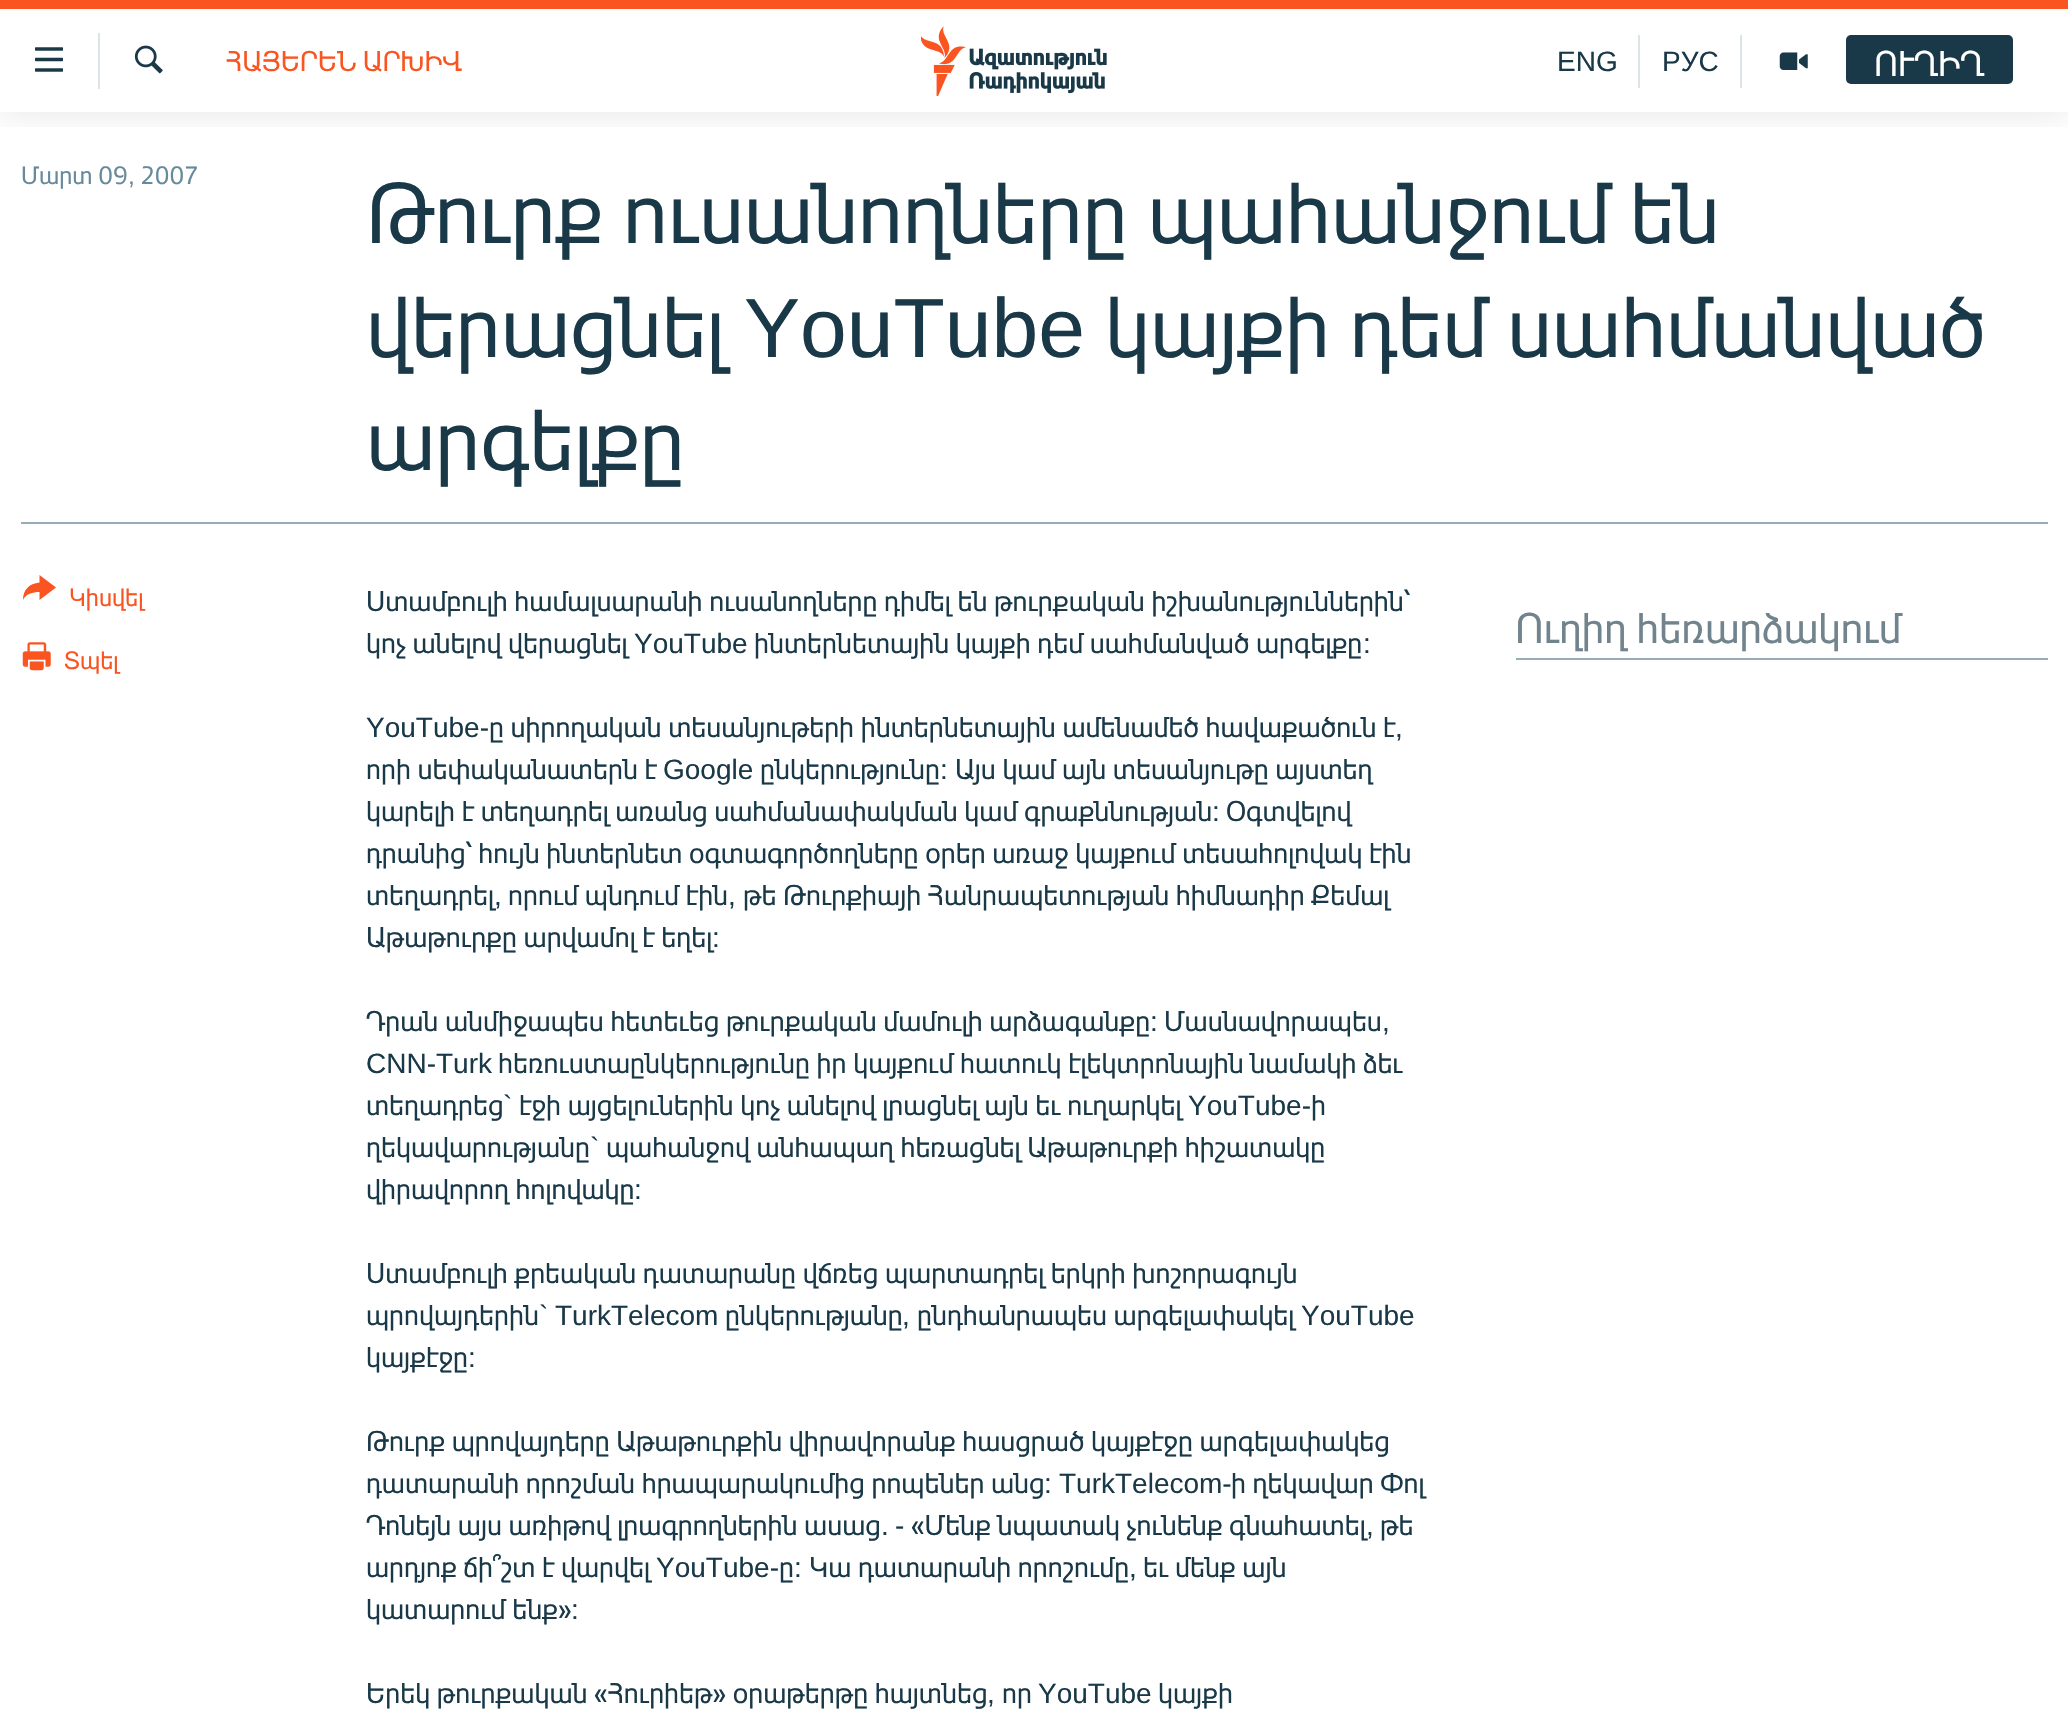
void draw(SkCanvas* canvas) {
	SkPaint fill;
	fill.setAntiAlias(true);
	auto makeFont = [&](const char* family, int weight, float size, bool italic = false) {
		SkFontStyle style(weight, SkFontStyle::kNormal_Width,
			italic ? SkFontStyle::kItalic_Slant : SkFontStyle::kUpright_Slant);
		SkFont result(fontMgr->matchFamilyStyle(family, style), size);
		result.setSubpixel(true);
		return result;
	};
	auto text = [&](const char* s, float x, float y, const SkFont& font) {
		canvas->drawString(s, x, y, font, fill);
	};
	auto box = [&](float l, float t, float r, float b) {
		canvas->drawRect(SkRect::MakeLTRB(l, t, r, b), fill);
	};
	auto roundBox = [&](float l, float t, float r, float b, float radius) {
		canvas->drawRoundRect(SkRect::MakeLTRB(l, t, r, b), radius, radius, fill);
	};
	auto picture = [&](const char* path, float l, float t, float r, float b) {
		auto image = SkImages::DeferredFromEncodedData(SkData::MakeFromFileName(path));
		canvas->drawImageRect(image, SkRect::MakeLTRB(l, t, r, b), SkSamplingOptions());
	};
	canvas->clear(0xFFFFFFFF);
	canvas->save();
	canvas->clipRect(SkRect::MakeLTRB(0, 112, 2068, 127));
	fill.setColor(0x1A000000);
	fill.setMaskFilter(SkMaskFilter::MakeBlur(kNormal_SkBlurStyle, 17.5f));
	canvas->drawRect(SkRect::MakeLTRB(0, 0, 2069, 112), fill);
	fill.setMaskFilter(nullptr);
	canvas->restore();
	fill.setColor(0xFFFA5420);
	box(0, 0, 2068, 9);
	picture("image0.png", 35, 47, 63, 72);
	fill.setColor(0xFFDCE4E8);
	box(98, 33, 100, 89);
	picture("image1.png", 134, 45, 163, 74);
	picture("image2.png", 921, 26, 1107, 96);
	box(1638, 35, 1640, 88);
	box(1740, 35, 1742, 88);
	picture("image3.png", 1779, 52, 1808, 70);
	fill.setColor(0xFF1A3948);
	roundBox(1846, 35, 2013, 84, 5);
	fill.setColor(0xFF95ADB9);
	box(21, 522, 2048, 524);
	fill.setColor(0xFFFA5420);
	canvas->drawPath(SkPathBuilder().moveTo(23, 600).cubicTo(23, 590, 29, 583.5f, 39.5f, 582.5f).lineTo(39.5f, 575).lineTo(56, 587.5f).lineTo(39.5f, 600).lineTo(39.5f, 592).cubicTo(33, 592, 25.5f, 594, 23, 600).close().detach(), fill);
	picture("image4.png", 22, 642, 51, 671);
	fill.setColor(0xFF95ADB9);
	box(1516, 658, 2048, 660);
	auto font1 = makeFont("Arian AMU", 400, 28);
	fill.setColor(0xFFFA5420);
	text("ՀԱՅԵՐԵՆ ԱՐԽԻՎ", 226, 71, font1);
	auto font2 = makeFont("Liberation Sans", 400, 28);
	fill.setColor(0xFF1A3948);
	text("ENG", 1557, 71, font2);
	text("РУС", 1662, 71, font2);
	auto font3 = makeFont("Arian AMU", 400, 35);
	fill.setColor(0xFFFFFFFF);
	text("ՈՒՂԻՂ", 1874, 76, font3);
	auto font4 = makeFont("Arian AMU", 400, 24.5f);
	fill.setColor(0xFF678A9B);
	text("Մարտ 09", 21, 184, font4);
	auto font5 = makeFont("Liberation Sans", 400, 24.5f);
	text(",", 128, 184, font5);
	text("2007", 140, 184, font4);
	auto font6 = makeFont("Arian AMU", 400, 84);
	fill.setColor(0xFF1A3948);
	text("Թուրք ուսանողները պահանջում են", 366, 243, font6);
	text("վերացնել", 366, 357, font6);
	auto font7 = makeFont("Liberation Sans", 400, 84);
	text("YouTube", 744, 357, font7);
	text("կայքի դեմ սահմանված", 1105, 357, font6);
	text("արգելքը", 366, 470, font6);
	fill.setColor(0xFFFA5420);
	text("Կիսվել", 69, 606, font4);
	text("Տպել", 64, 669, font4);
	fill.setColor(0xFF1A3948);
	text("Ստամբուլի համալսարանի ուսանողները դիմել են թուրքական իշխանություններին՝", 366, 611, font1);
	text("կոչ անելով վերացնել", 366, 653, font1);
	text("YouTube", 634, 653, font2);
	text("ինտերնետային կայքի դեմ սահմանված արգելքը", 754, 653, font1);
	text(":", 1363, 653, font2);
	text("YouTube-", 366, 737, font2);
	text("ը սիրողական տեսանյութերի ինտերնետային ամենամեծ հավաքածուն է", 489, 737, font1);
	text(",", 1395, 737, font2);
	text("որի սեփականատերն է", 366, 779, font1);
	text("Google", 663, 779, font2);
	text("ընկերությունը", 760, 779, font1);
	text(":", 940, 779, font2);
	text("Այս կամ այն տեսանյութը այստեղ", 955, 779, font1);
	text("կարելի է տեղադրել առանց սահմանափակման կամ գրաքննության", 366, 821, font1);
	text(":", 1212, 821, font2);
	text("Օգտվելով", 1226, 821, font1);
	text("դրանից՝ հույն ինտերնետ օգտագործողները օրեր առաջ կայքում տեսահոլովակ էին", 366, 863, font1);
	text("տեղադրել", 366, 905, font1);
	text(",", 494, 905, font2);
	text("որում պնդում էին", 508, 905, font1);
	text(",", 728, 905, font2);
	text("թե Թուրքիայի Հանրապետության հիմնադիր Քեմալ", 743, 905, font1);
	text("Աթաթուրքը արվամոլ է եղել", 366, 947, font1);
	text(":", 712, 947, font2);
	text("Դրան անմիջապես հետեւեց թուրքական մամուլի արձագանքը", 366, 1031, font1);
	text(":", 1150, 1031, font2);
	text("Մասնավորապես", 1164, 1031, font1);
	text(",", 1382, 1031, font2);
	text("CNN-Turk", 366, 1073, font2);
	text("հեռուստաընկերությունը իր կայքում հատուկ էլեկտրոնային նամակի ձեւ", 498, 1073, font1);
	text("տեղադրեց", 366, 1115, font1);
	text("`", 503, 1115, font2);
	text("էջի այցելուներին կոչ անելով լրացնել այն եւ ուղարկել", 519, 1115, font1);
	text("YouTube-", 1188, 1115, font2);
	text("ի", 1311, 1115, font1);
	text("ղեկավարությանը", 366, 1157, font1);
	text("`", 590, 1157, font2);
	text("պահանջով անհապաղ հեռացնել Աթաթուրքի հիշատակը", 606, 1157, font1);
	text("վիրավորող հոլովակը", 366, 1199, font1);
	text(":", 634, 1199, font2);
	text("Ստամբուլի քրեական դատարանը վճռեց պարտադրել երկրի խոշորագույն", 366, 1283, font1);
	text("պրովայդերին", 366, 1325, font1);
	text("`", 539, 1325, font2);
	text("TurkTelecom", 555, 1325, font2);
	text("ընկերությանը", 725, 1325, font1);
	text(",", 902, 1325, font2);
	text("ընդհանրապես արգելափակել", 917, 1325, font1);
	text("YouTube", 1301, 1325, font2);
	text("կայքէջը", 366, 1367, font1);
	text(":", 468, 1367, font2);
	text("Թուրք պրովայդերը Աթաթուրքին վիրավորանք հասցրած կայքէջը արգելափակեց", 366, 1451, font1);
	text("դատարանի որոշման հրապարակումից րոպեներ անց", 366, 1493, font1);
	text(":", 1044, 1493, font2);
	text("TurkTelecom-", 1059, 1493, font2);
	text("ի ղեկավար Փոլ", 1231, 1493, font1);
	text("Դոնեյն այս առիթով լրագրողներին ասաց", 366, 1535, font1);
	text("-", 895, 1535, font2);
	text("«Մենք նպատակ չունենք գնահատել", 911, 1535, font1);
	text("թե", 1380, 1535, font1);
	text(".", 881, 1535, font2);
	text(",", 1366, 1535, font2);
	text("արդյոք ճի՞շտ է վարվել", 366, 1577, font1);
	text("YouTube-", 656, 1577, font2);
	text("ը", 779, 1577, font1);
	text(":", 794, 1577, font2);
	text("Կա դատարանի որոշումը", 809, 1577, font1);
	text(",", 1129, 1577, font2);
	text("եւ մենք այն", 1143, 1577, font1);
	text("կատարում ենք»", 366, 1619, font1);
	text(":", 571, 1619, font2);
	text("Երեկ թուրքական «Հուրիեթ» օրաթերթը հայտնեց", 366, 1703, font1);
	text(",", 987, 1703, font2);
	text("որ", 1002, 1703, font1);
	text("YouTube", 1038, 1703, font2);
	text("կայքի", 1158, 1703, font1);
	auto font8 = makeFont("Arian AMU", 400, 42);
	fill.setColor(0xFF71838D);
	text("Ուղիղ հեռարձակում", 1515, 643, font8);
}
